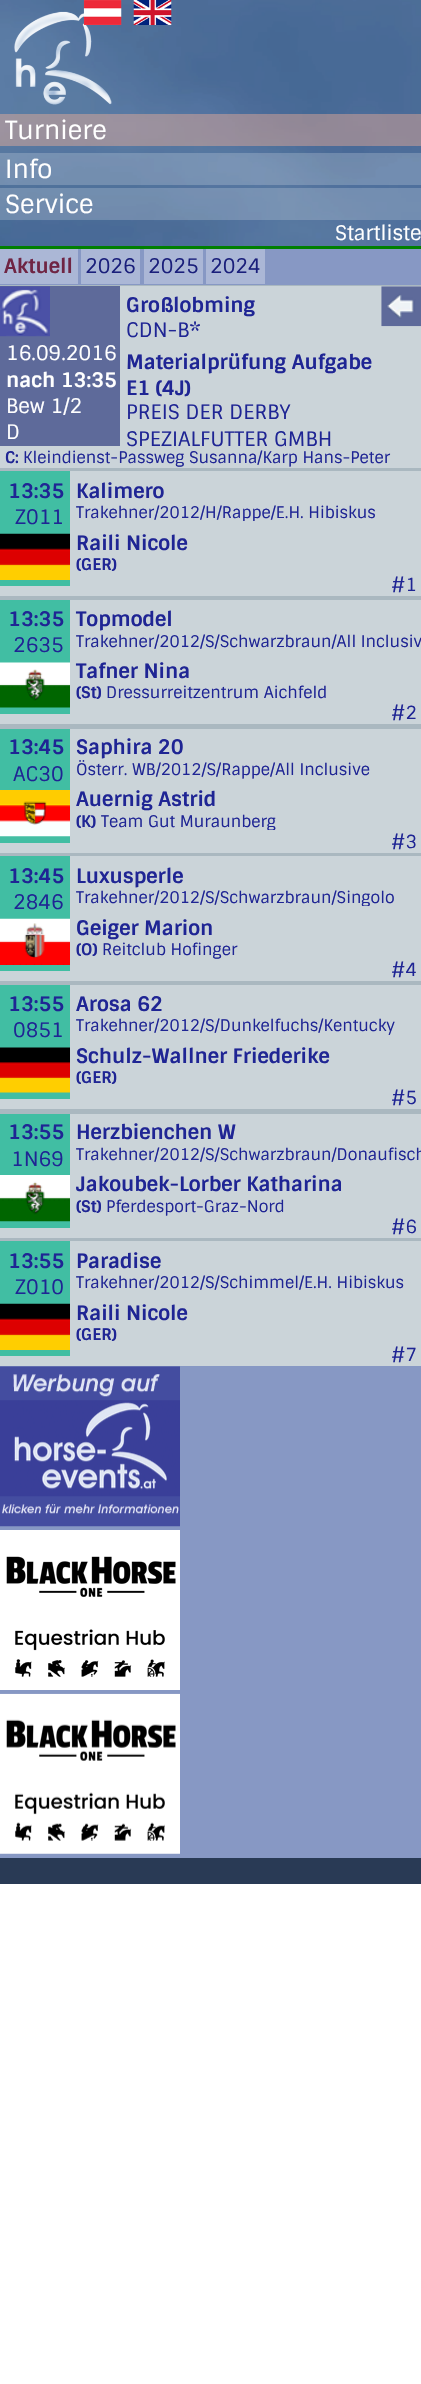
void draw(SkCanvas* canvas) {
	SkPaint fill;
	fill.setAntiAlias(true);
	auto makeFont = [&](const char* family, int weight, float size, bool italic = false) {
		SkFontStyle style(weight, SkFontStyle::kNormal_Width,
			italic ? SkFontStyle::kItalic_Slant : SkFontStyle::kUpright_Slant);
		SkFont result(fontMgr->matchFamilyStyle(family, style), size);
		result.setSubpixel(true);
		return result;
	};
	auto text = [&](const char* s, float x, float y, const SkFont& font) {
		canvas->drawString(s, x, y, font, fill);
	};
	auto box = [&](float l, float t, float r, float b) {
		canvas->drawRect(SkRect::MakeLTRB(l, t, r, b), fill);
	};
	auto picture = [&](const char* path, float l, float t, float r, float b) {
		auto image = SkImages::DeferredFromEncodedData(SkData::MakeFromFileName(path));
		canvas->drawImageRect(image, SkRect::MakeLTRB(l, t, r, b), SkSamplingOptions());
	};
	canvas->clear(0xFFFFFFFF);
	picture("image0.png", 0, 0, 421, 246);
	picture("image1.png", 14, 11, 112, 105);
	picture("image2.png", 83, 0, 122, 25);
	picture("image3.png", 133, 0, 172, 25);
	fill.setColor(0x66FFB496);
	box(0, 114, 421, 146);
	fill.setColor(0x33FFFFFF);
	box(0, 153, 421, 185);
	box(0, 188, 421, 220);
	fill.setColor(0xFF008000);
	box(0, 246, 421, 249);
	fill.setColor(0xFFAAB8C0);
	box(0, 285, 421, 1241);
	fill.setColor(0xFF8798C4);
	box(0, 249, 421, 285);
	fill.setColor(0xFFABB7D6);
	box(0, 249, 78, 284);
	box(81, 249, 140, 284);
	box(144, 249, 203, 284);
	box(206, 249, 265, 284);
	fill.setColor(0xFFCBD4D9);
	box(120, 286, 421, 446);
	fill.setColor(0xFF5E6A9A);
	box(0, 286, 120, 446);
	picture("image4.png", 0, 286, 50, 337);
	picture("image5.png", 381, 286, 421, 327);
	fill.setColor(0xFFCBD4D9);
	box(0, 446, 421, 468);
	box(0, 471, 421, 596);
	fill.setColor(0xFF41BEA3);
	box(0, 471, 70, 586);
	picture("image6.png", 0, 533, 70, 580);
	fill.setColor(0xFFCBD4D9);
	box(0, 600, 421, 724);
	fill.setColor(0xFF41BEA3);
	box(0, 600, 70, 714);
	picture("image7.png", 0, 662, 70, 708);
	fill.setColor(0xFFCBD4D9);
	box(0, 729, 421, 853);
	fill.setColor(0xFF41BEA3);
	box(0, 729, 70, 843);
	picture("image8.png", 0, 790, 70, 837);
	fill.setColor(0xFFCBD4D9);
	box(0, 856, 421, 981);
	fill.setColor(0xFF41BEA3);
	box(0, 856, 70, 971);
	picture("image9.png", 0, 918, 70, 965);
	fill.setColor(0xFFCBD4D9);
	box(0, 985, 421, 1109);
	fill.setColor(0xFF41BEA3);
	box(0, 985, 70, 1099);
	picture("image10.png", 0, 1047, 70, 1093);
	fill.setColor(0xFFCBD4D9);
	box(0, 1114, 421, 1238);
	fill.setColor(0xFF41BEA3);
	box(0, 1114, 70, 1228);
	picture("image11.png", 0, 1175, 70, 1222);
	fill.setColor(0xFFCBD4D9);
	box(0, 1241, 421, 1366);
	fill.setColor(0xFF41BEA3);
	box(0, 1241, 70, 1356);
	picture("image6.png", 0, 1303, 70, 1350);
	fill.setColor(0xFF8798C4);
	box(0, 1366, 421, 1858);
	picture("image12.png", 0, 1366, 180, 1527);
	picture("image13.png", 0, 1530, 180, 1690);
	picture("image14.png", 0, 1693, 180, 1854);
	fill.setColor(0xFF293A55);
	box(0, 1858, 421, 1884);
	auto font1 = makeFont("Sintony", 400, 25);
	fill.setColor(0xFFFFFFFF);
	text("Turniere", 5, 139, font1);
	text("Info", 5, 178, font1);
	text("Service", 5, 213, font1);
	auto font2 = makeFont("Sintony", 400, 20);
	text("Startliste", 335, 240, font2);
	auto font3 = makeFont("Sintony", 700, 20);
	fill.setColor(0xFF6F2544);
	text("Aktuell", 4, 273, font3);
	fill.setColor(0xFF1A1F7B);
	text("2026", 85, 273, font2);
	text("2025", 148, 273, font2);
	text("2024", 210, 273, font2);
	fill.setColor(0xFFFFFFFF);
	text("16.09.2016", 6, 360, font2);
	text("nach 13:35", 6, 387, font3);
	text("Bew 1/2", 6, 413, font2);
	text("D", 6, 439, font2);
	fill.setColor(0xFF1F2594);
	text("Großlobming", 126, 312, font3);
	text("CDN-B*", 126, 337, font2);
	text("Materialprüfung Aufgabe", 126, 369, font3);
	text("E1 (4J)", 126, 395, font3);
	text("PREIS DER DERBY", 126, 419, font2);
	text("SPEZIALFUTTER GMBH", 126, 446, font2);
	auto font4 = makeFont("Sintony", 700, 16);
	text("C:", 5, 463, font4);
	auto font5 = makeFont("Sintony", 400, 16);
	text("Kleindienst-Passweg Susanna/Karp Hans-Peter", 23, 463, font5);
	text("13:35", 8, 498, font3);
	text("Z011", 15, 524, font2);
	text("Kalimero", 76, 498, font3);
	canvas->save();
	canvas->clipRect(SkRect::MakeLTRB(76, 503, 421, 521));
	text("Trakehner/2012/H/Rappe/E.H. Hibiskus", 76, 518, font5);
	canvas->restore();
	text("Raili Nicole", 76, 550, font3);
	text("(GER)", 76, 570, font4);
	auto font6 = makeFont("Sintony", 400, 18);
	text("#1", 391, 591, font6);
	text("13:35", 8, 626, font3);
	text("2635", 13, 652, font2);
	text("Topmodel", 76, 626, font3);
	text("Trakehner/2012/S/Schwarzbraun/All Inclusiv", 76, 647, font5);
	text("Tafner Nina", 76, 678, font3);
	text("(St)", 76, 698, font4);
	text("Dressurreitzentrum Aichfeld", 106, 698, font5);
	text("#2", 391, 719, font6);
	text("13:45", 8, 754, font3);
	text("AC30", 13, 781, font2);
	text("Saphira 20", 76, 754, font3);
	text("Österr. WB/2012/S/Rappe/All Inclusive", 76, 775, font5);
	text("Auernig Astrid", 76, 806, font3);
	text("(K)", 76, 827, font4);
	canvas->save();
	canvas->clipRect(SkRect::MakeLTRB(76, 810, 421, 830));
	text("Team Gut Muraunberg", 101, 827, font5);
	canvas->restore();
	text("#3", 391, 848, font6);
	text("13:45", 8, 883, font3);
	text("2846", 13, 909, font2);
	text("Luxusperle", 76, 883, font3);
	canvas->save();
	canvas->clipRect(SkRect::MakeLTRB(76, 888, 421, 906));
	text("Trakehner/2012/S/Schwarzbraun/Singolo", 76, 903, font5);
	canvas->restore();
	text("Geiger Marion", 76, 935, font3);
	text("(O)", 76, 955, font4);
	text("Reitclub Hofinger", 102, 955, font5);
	text("#4", 391, 976, font6);
	text("13:55", 8, 1011, font3);
	text("0851", 13, 1037, font2);
	text("Arosa 62", 76, 1011, font3);
	text("Trakehner/2012/S/Dunkelfuchs/Kentucky", 76, 1031, font5);
	text("Schulz-Wallner Friederike", 76, 1063, font3);
	text("(GER)", 76, 1083, font4);
	text("#5", 391, 1104, font6);
	text("13:55", 8, 1139, font3);
	text("1N69", 11, 1166, font2);
	text("Herzbienchen W", 76, 1139, font3);
	text("Trakehner/2012/S/Schwarzbraun/Donaufisch", 76, 1160, font5);
	text("Jakoubek-Lorber Katharina", 76, 1191, font3);
	text("(St)", 76, 1212, font4);
	text("Pferdesport-Graz-Nord", 106, 1212, font5);
	text("#6", 391, 1233, font6);
	text("13:55", 8, 1268, font3);
	text("Z010", 15, 1294, font2);
	text("Paradise", 76, 1268, font3);
	text("Trakehner/2012/S/Schimmel/E.H. Hibiskus", 76, 1288, font5);
	text("Raili Nicole", 76, 1320, font3);
	text("(GER)", 76, 1340, font4);
	text("#7", 391, 1361, font6);
}
